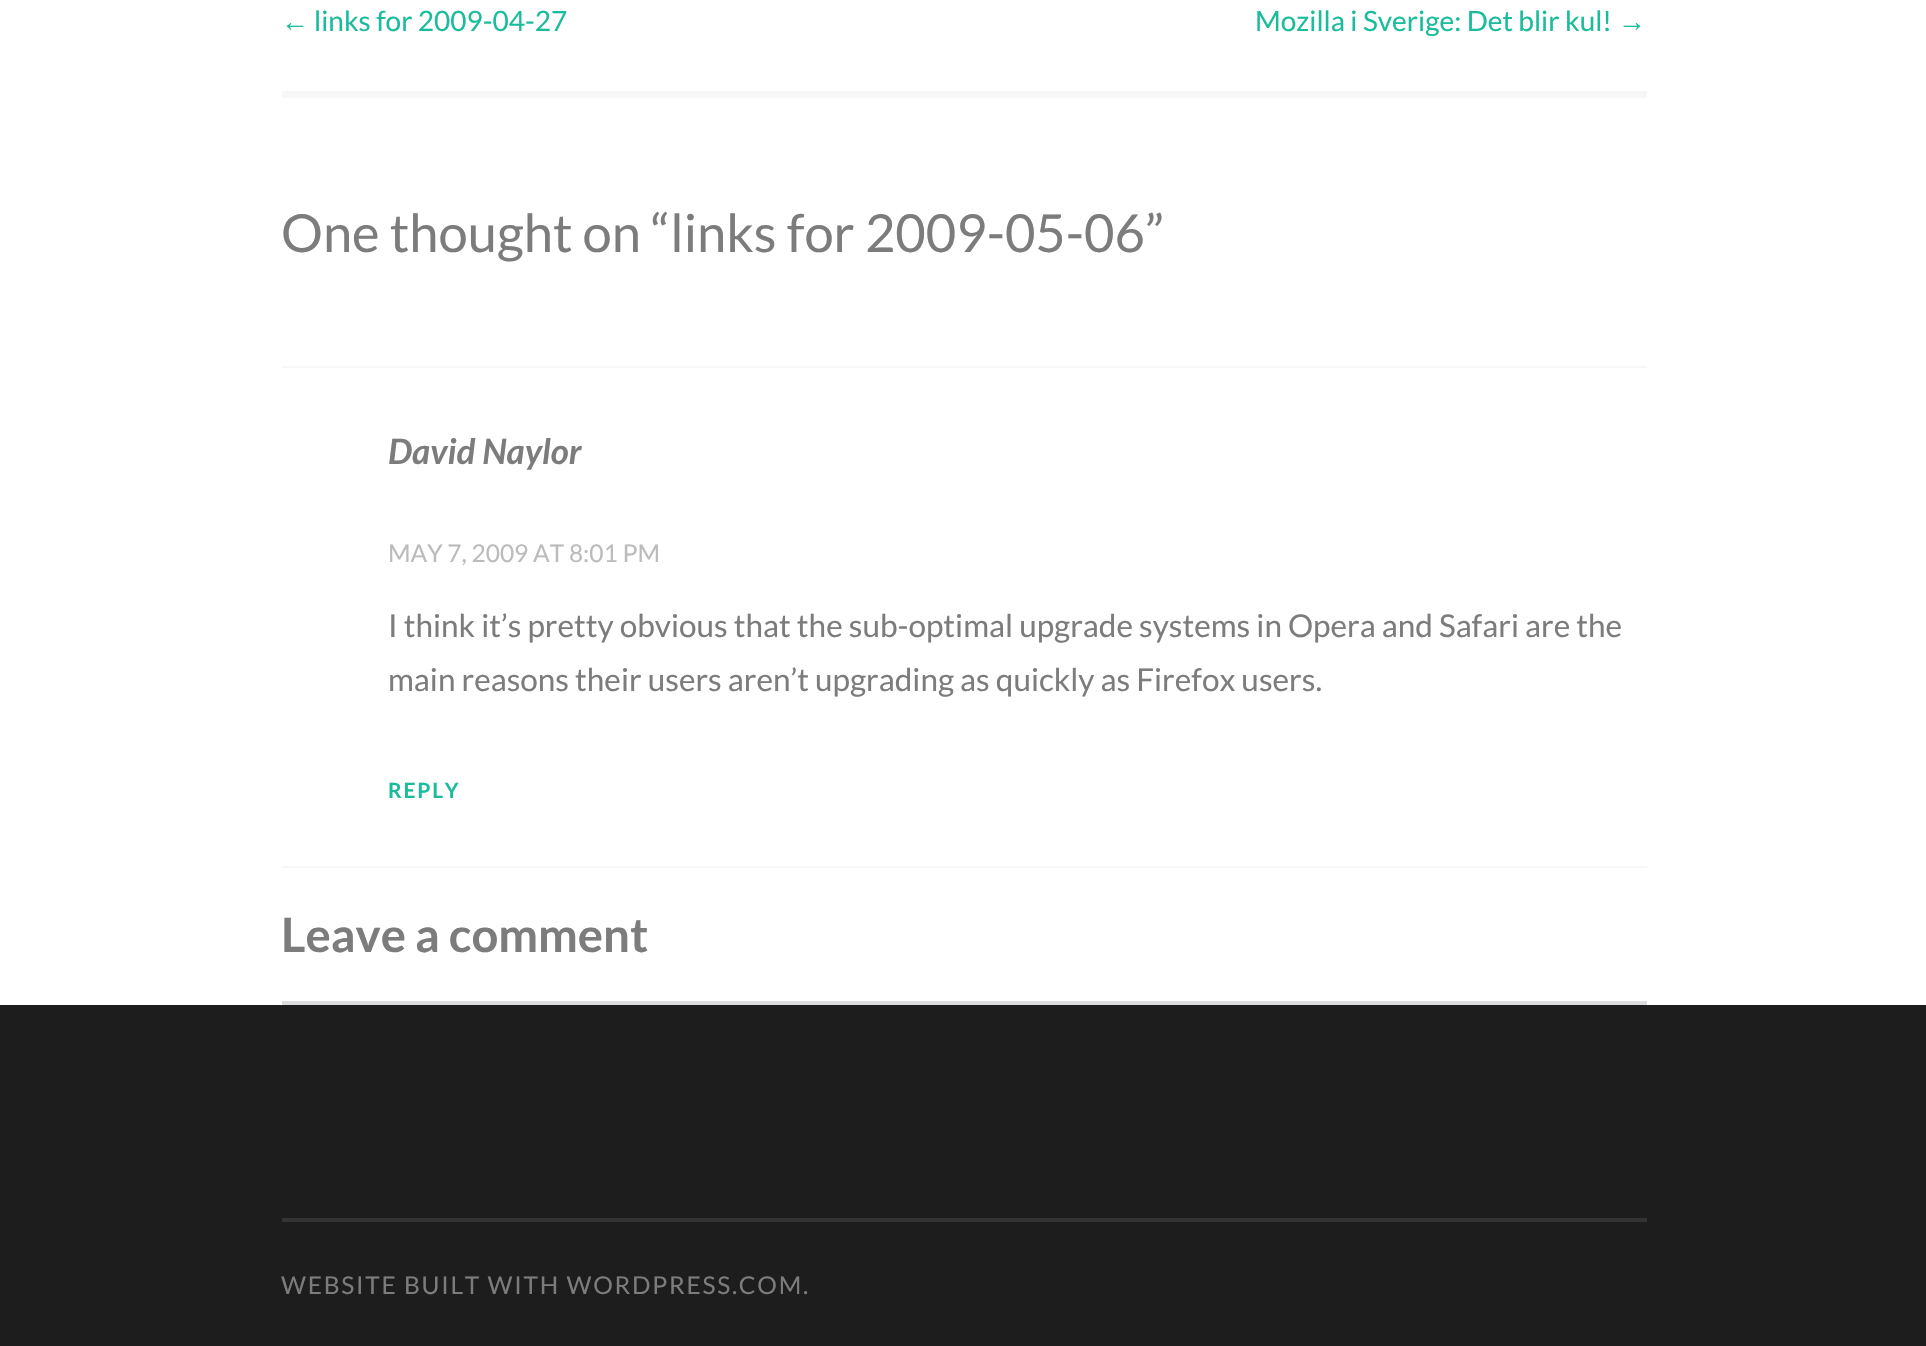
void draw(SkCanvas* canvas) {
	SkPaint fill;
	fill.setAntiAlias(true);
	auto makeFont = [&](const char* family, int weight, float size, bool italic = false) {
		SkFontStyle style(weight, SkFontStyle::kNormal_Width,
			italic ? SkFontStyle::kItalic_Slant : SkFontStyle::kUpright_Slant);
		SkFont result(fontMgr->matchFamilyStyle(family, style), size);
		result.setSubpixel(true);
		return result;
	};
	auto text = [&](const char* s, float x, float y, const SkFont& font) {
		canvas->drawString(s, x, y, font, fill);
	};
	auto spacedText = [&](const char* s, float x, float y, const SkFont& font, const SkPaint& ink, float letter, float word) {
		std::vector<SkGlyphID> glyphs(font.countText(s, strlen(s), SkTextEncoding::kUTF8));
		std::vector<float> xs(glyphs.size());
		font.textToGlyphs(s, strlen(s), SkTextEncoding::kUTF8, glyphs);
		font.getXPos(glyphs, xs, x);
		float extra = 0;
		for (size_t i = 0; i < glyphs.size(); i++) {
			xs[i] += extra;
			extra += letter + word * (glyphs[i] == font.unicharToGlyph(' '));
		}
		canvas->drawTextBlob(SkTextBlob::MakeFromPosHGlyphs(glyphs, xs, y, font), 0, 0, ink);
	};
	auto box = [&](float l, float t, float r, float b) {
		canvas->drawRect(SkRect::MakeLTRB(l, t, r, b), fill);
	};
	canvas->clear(0xFFFFFFFF);
	fill.setColor(0xFFF7F7F7);
	box(282, 91, 1647, 98);
	box(282, 366, 1647, 368);
	box(282, 866, 1647, 868);
	fill.setColor(0xFFDCDCDE);
	box(282, 1001, 1647, 1005);
	fill.setColor(0xFF1D1D1D);
	box(0, 1005, 1926, 1346);
	fill.setColor(0xFF343434);
	box(282, 1218, 1647, 1222);
	auto font1 = makeFont("Liberation Sans", 400, 28);
	fill.setColor(0xFF1ABC9C);
	text("←", 281, 31, font1);
	auto font2 = makeFont("Lato", 400, 28);
	text("links for 2009-04-27", 314, 31, font2);
	text("Mozilla i Sverige: Det blir kul!", 1255, 31, font2);
	text("→", 1618, 31, font1);
	auto font3 = makeFont("Lato", 400, 52.5f);
	fill.setColor(0xFF7C7C7C);
	text("One thought on “links for 2009-05-06”", 281, 252, font3);
	auto font4 = makeFont("Lato", 700, 35, true);
	text("David Naylor", 388, 464, font4);
	auto font5 = makeFont("Lato", 400, 24.5f);
	fill.setColor(0xFFBBBBBB);
	text("MAY 7, 2009 AT 8:01 PM", 388, 562, font5);
	auto font6 = makeFont("Lato", 400, 31.5f);
	fill.setColor(0xFF7C7C7C);
	text("I think it’s pretty obvious that the sub-optimal upgrade systems in Opera and Safari are the", 388, 637, font6);
	text("main reasons their users aren’t upgrading as quickly as Firefox users.", 388, 691, font6);
	auto font7 = makeFont("Lato", 700, 21);
	fill.setColor(0xFF1ABC9C);
	spacedText("REPLY", 388, 798, font7, fill, 1.75f, 0);
	auto font8 = makeFont("Lato", 700, 47.25f);
	fill.setColor(0xFF7C7C7C);
	text("Leave a comment", 281, 952, font8);
	spacedText("WEBSITE BUILT WITH WORDPRESS.COM.", 281, 1294, font5, fill, 1.75f, 0);
}
